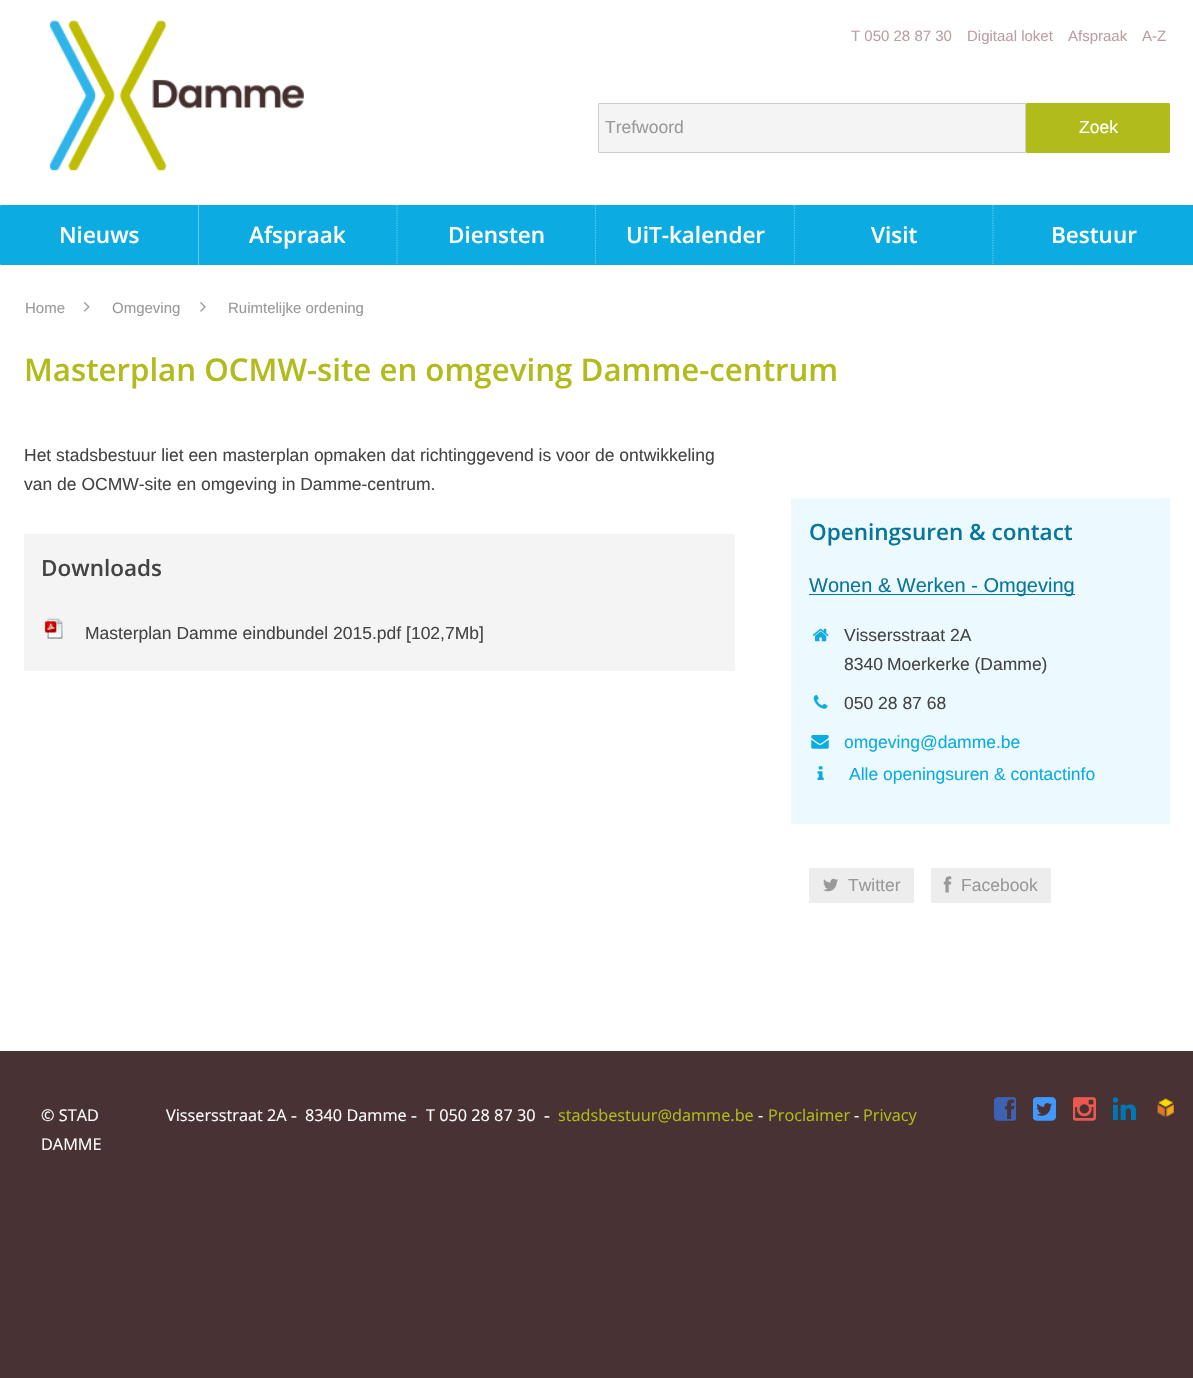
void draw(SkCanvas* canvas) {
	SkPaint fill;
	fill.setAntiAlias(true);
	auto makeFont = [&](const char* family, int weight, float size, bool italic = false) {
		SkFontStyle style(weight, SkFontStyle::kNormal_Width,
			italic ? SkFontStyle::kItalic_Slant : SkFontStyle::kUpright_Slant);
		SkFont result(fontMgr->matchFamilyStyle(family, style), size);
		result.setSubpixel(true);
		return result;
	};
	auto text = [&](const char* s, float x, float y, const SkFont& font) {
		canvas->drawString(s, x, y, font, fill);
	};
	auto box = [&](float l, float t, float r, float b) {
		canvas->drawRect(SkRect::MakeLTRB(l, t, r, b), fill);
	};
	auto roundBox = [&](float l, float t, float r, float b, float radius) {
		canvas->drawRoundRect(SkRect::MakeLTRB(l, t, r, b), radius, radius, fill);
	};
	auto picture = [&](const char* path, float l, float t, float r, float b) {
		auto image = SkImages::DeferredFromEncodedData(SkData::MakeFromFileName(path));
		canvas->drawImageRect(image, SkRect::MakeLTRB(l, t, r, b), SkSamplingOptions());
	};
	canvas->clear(0xFF483234);
	fill.setColor(0xFFFFFFFF);
	box(0, 0, 1193, 1051);
	picture("image0.png", 49, 20, 304, 172);
	fill.setColor(0xFFF4F4F4);
	canvas->drawRoundRect(SkRect::MakeLTRB(598.5f, 103.5f, 1025.5f, 152.5f), 0.5f, 0.5f, fill);
	fill.setStyle(SkPaint::kStroke_Style);
	fill.setStrokeWidth(1);
	fill.setColor(0xFFCCCCCC);
	canvas->drawRoundRect(SkRect::MakeLTRB(598.5f, 103.5f, 1025.5f, 152.5f), 0.5f, 0.5f, fill);
	fill.setStyle(SkPaint::kFill_Style);
	fill.setColor(0xFFB2BB1C);
	canvas->drawRoundRect(SkRect::MakeLTRB(1026.5f, 103.5f, 1169.5f, 152.5f), 0.5f, 0.5f, fill);
	fill.setStyle(SkPaint::kStroke_Style);
	canvas->drawRoundRect(SkRect::MakeLTRB(1026.5f, 103.5f, 1169.5f, 152.5f), 0.5f, 0.5f, fill);
	fill.setStyle(SkPaint::kFill_Style);
	fill.setColor(0xFF0CABE1);
	roundBox(0, 205, 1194, 265, 1);
	fill.setColor(0xFF5DCFF6);
	box(198, 205, 199, 265);
	fill.setStyle(SkPaint::kStroke_Style);
	fill.setStrokeWidth(1.2f);
	fill.setPathEffect(SkDashPathEffect::Make({{1.25f, 1.25f}}, 0));
	canvas->drawPath(SkPathBuilder().moveTo(397, 205).lineTo(397, 265).detach(), fill);
	fill.setPathEffect(nullptr);
	fill.setPathEffect(SkDashPathEffect::Make({{1.25f, 1.25f}}, 0));
	canvas->drawPath(SkPathBuilder().moveTo(595.5f, 205).lineTo(595.5f, 265).detach(), fill);
	fill.setPathEffect(nullptr);
	fill.setStyle(SkPaint::kFill_Style);
	fill.setColor(0xFF0CABE1);
	box(596, 205, 597, 264);
	fill.setStyle(SkPaint::kStroke_Style);
	fill.setColor(0xFF5DCFF6);
	fill.setPathEffect(SkDashPathEffect::Make({{1.25f, 1.25f}}, 0));
	canvas->drawPath(SkPathBuilder().moveTo(794.5f, 205).lineTo(794.5f, 265).detach(), fill);
	fill.setPathEffect(nullptr);
	fill.setStyle(SkPaint::kFill_Style);
	fill.setColor(0xFF0CABE1);
	box(795, 205, 796, 264);
	fill.setStyle(SkPaint::kStroke_Style);
	fill.setColor(0xFF5DCFF6);
	fill.setPathEffect(SkDashPathEffect::Make({{1.25f, 1.25f}}, 0));
	canvas->drawPath(SkPathBuilder().moveTo(993, 205).lineTo(993, 265).detach(), fill);
	fill.setPathEffect(nullptr);
	picture("image1.png", 84, 302, 90, 312);
	picture("image2.png", 200, 302, 206, 312);
	fill.setStyle(SkPaint::kFill_Style);
	fill.setColor(0xFFF4F4F4);
	roundBox(24, 534, 735, 671, 1);
	picture("image3.png", 44, 618, 63, 639);
	fill.setColor(0xFFECF9FE);
	roundBox(791, 498, 1170, 824, 1);
	fill.setColor(0xFF08769B);
	box(809, 594, 1075, 595);
	picture("image4.png", 812, 628, 829, 642);
	picture("image5.png", 813, 695, 828, 709);
	picture("image6.png", 811, 735, 829, 749);
	picture("image7.png", 817, 766, 824, 780);
	fill.setColor(0xFFEDEDED);
	roundBox(809, 868, 914, 903, 1);
	picture("image8.png", 823, 878, 838, 892);
	roundBox(931, 868, 1051, 903, 1);
	picture("image9.png", 943, 876, 952, 893);
	fill.setColor(0xFF453032);
	box(0, 1051, 1193, 1052);
	picture("image10.png", 994, 1097, 1016, 1121);
	picture("image11.png", 1033, 1097, 1056, 1121);
	picture("image12.png", 1073, 1097, 1096, 1121);
	picture("image13.png", 1113, 1097, 1136, 1120);
	picture("image14.png", 1157, 1098, 1174, 1117);
	auto font1 = makeFont("Liberation Sans", 400, 15);
	fill.setColor(0xFFBC9FA1);
	text("T 050 28 87 30", 851, 41, font1);
	text("Digitaal loket", 967, 41, font1);
	text("Afspraak", 1068, 41, font1);
	text("A-Z", 1142, 41, font1);
	auto font2 = makeFont("Liberation Sans", 400, 17.5f);
	fill.setColor(0xFF999999);
	text("Trefwoord", 605, 133, font2);
	fill.setColor(0xFFFFFFFF);
	text("Zoek", 1079, 133, font2);
	auto font3 = makeFont("Open Sans", 600, 22.5f);
	text("Nieuws", 59, 243, font3);
	text("Afspraak", 249, 243, font3);
	text("Diensten", 448, 243, font3);
	text("UiT-kalender", 626, 243, font3);
	text("Visit", 871, 243, font3);
	text("Bestuur", 1051, 243, font3);
	fill.setColor(0xFF999999);
	text("Home", 25, 313, font1);
	text("Omgeving", 112, 313, font1);
	text("Ruimtelijke ordening", 228, 313, font1);
	auto font4 = makeFont("Open Sans", 600, 31.25f);
	fill.setColor(0xFFB2BB1C);
	text("Masterplan OCMW-site en omgeving Damme-centrum", 24, 381, font4);
	fill.setColor(0xFF444444);
	text("Het stadsbestuur liet een masterplan opmaken dat richtinggevend is voor de ontwikkeling", 24, 461, font2);
	text("van de OCMW-site en omgeving in Damme-centrum.", 24, 490, font2);
	text("Downloads", 41, 576, font3);
	text("Masterplan Damme eindbundel 2015.pdf [102,7Mb]", 85, 639, font2);
	fill.setColor(0xFF08769B);
	text("Openingsuren & contact", 809, 540, font3);
	auto font5 = makeFont("Liberation Sans", 400, 20);
	text("Wonen & Werken - Omgeving", 809, 592, font5);
	fill.setColor(0xFF444444);
	text("Vissersstraat 2A", 844, 641, font2);
	text("8340", 844, 670, font2);
	text("Moerkerke (Damme)", 887, 670, font2);
	text("050 28 87 68", 844, 709, font2);
	fill.setColor(0xFF0CABE1);
	text("omgeving@damme.be", 844, 748, font2);
	text("Alle openingsuren & contactinfo", 849, 780, font2);
	fill.setColor(0xFF999999);
	text("Twitter", 848, 891, font2);
	text("Facebook", 961, 891, font2);
	auto font6 = makeFont("Open Sans", 400, 16.25f);
	fill.setColor(0xFFFFFFFF);
	text("© STAD", 41, 1121, font6);
	text("DAMME", 41, 1150, font6);
	text("Vissersstraat 2A", 166, 1121, font6);
	auto font7 = makeFont("Liberation Serif", 400, 17.5f);
	text("-", 291, 1121, font7);
	text("8340 Damme", 305, 1121, font6);
	text("-", 411, 1121, font7);
	text("T 050 28 87 30", 426, 1121, font6);
	text("-", 544, 1121, font7);
	fill.setColor(0xFFB2BB1C);
	text("stadsbestuur@damme.be", 558, 1121, font6);
	fill.setColor(0xFFFFFFFF);
	text("-", 758, 1121, font6);
	fill.setColor(0xFFB2BB1C);
	text("Proclaimer", 768, 1121, font6);
	fill.setColor(0xFFFFFFFF);
	text("-", 854, 1121, font6);
	fill.setColor(0xFFB2BB1C);
	text("Privacy", 863, 1121, font6);
}
